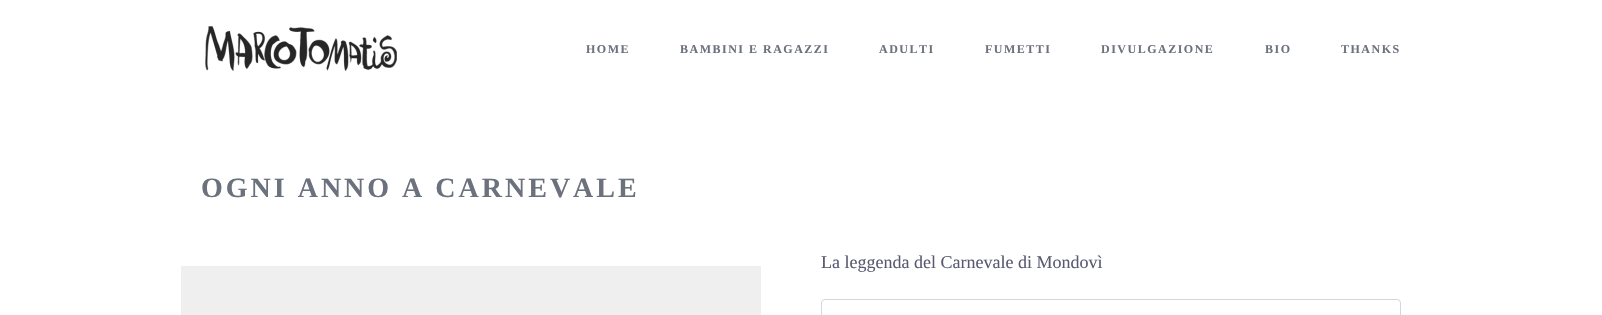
void draw(SkCanvas* canvas) {
	SkPaint fill;
	fill.setAntiAlias(true);
	auto makeFont = [&](const char* family, int weight, float size, bool italic = false) {
		SkFontStyle style(weight, SkFontStyle::kNormal_Width,
			italic ? SkFontStyle::kItalic_Slant : SkFontStyle::kUpright_Slant);
		SkFont result(fontMgr->matchFamilyStyle(family, style), size);
		result.setSubpixel(true);
		return result;
	};
	auto text = [&](const char* s, float x, float y, const SkFont& font) {
		canvas->drawString(s, x, y, font, fill);
	};
	auto spacedText = [&](const char* s, float x, float y, const SkFont& font, const SkPaint& ink, float letter, float word) {
		std::vector<SkGlyphID> glyphs(font.countText(s, strlen(s), SkTextEncoding::kUTF8));
		std::vector<float> xs(glyphs.size());
		font.textToGlyphs(s, strlen(s), SkTextEncoding::kUTF8, glyphs);
		font.getXPos(glyphs, xs, x);
		float extra = 0;
		for (size_t i = 0; i < glyphs.size(); i++) {
			xs[i] += extra;
			extra += letter + word * (glyphs[i] == font.unicharToGlyph(' '));
		}
		canvas->drawTextBlob(SkTextBlob::MakeFromPosHGlyphs(glyphs, xs, y, font), 0, 0, ink);
	};
	auto box = [&](float l, float t, float r, float b) {
		canvas->drawRect(SkRect::MakeLTRB(l, t, r, b), fill);
	};
	auto picture = [&](const char* path, float l, float t, float r, float b) {
		auto image = SkImages::DeferredFromEncodedData(SkData::MakeFromFileName(path));
		canvas->drawImageRect(image, SkRect::MakeLTRB(l, t, r, b), SkSamplingOptions());
	};
	canvas->clear(0xFFFFFFFF);
	picture("image0.png", 205, 26, 397, 72);
	fill.setStyle(SkPaint::kStroke_Style);
	fill.setStrokeWidth(1);
	fill.setColor(0xFFD5D6DB);
	canvas->drawRoundRect(SkRect::MakeLTRB(821.5f, 299.5f, 1400.5f, 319.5f), 3.5f, 3.5f, fill);
	fill.setStyle(SkPaint::kFill_Style);
	fill.setColor(0xFFEFEFEF);
	box(181, 266, 761, 315);
	auto font1 = makeFont("Liberation Serif", 700, 12);
	fill.setColor(0xFF6C727D);
	spacedText("HOME", 586, 53, font1, fill, 1.5f, 0);
	spacedText("BAMBINI E RAGAZZI", 680, 53, font1, fill, 1.5f, 0);
	spacedText("ADULTI", 879, 53, font1, fill, 1.5f, 0);
	spacedText("FUMETTI", 985, 53, font1, fill, 1.5f, 0);
	spacedText("DIVULGAZIONE", 1101, 53, font1, fill, 1.5f, 0);
	spacedText("BIO", 1265, 53, font1, fill, 1.5f, 0);
	spacedText("THANKS", 1341, 53, font1, fill, 1.5f, 0);
	auto font2 = makeFont("Liberation Serif", 700, 28);
	spacedText("OGNI ANNO A CARNEVALE", 201, 197, font2, fill, 3, 0);
	auto font3 = makeFont("Liberation Serif", 400, 18);
	fill.setColor(0xFF595971);
	text("La leggenda del Carnevale di Mondovì", 821, 268, font3);
}
